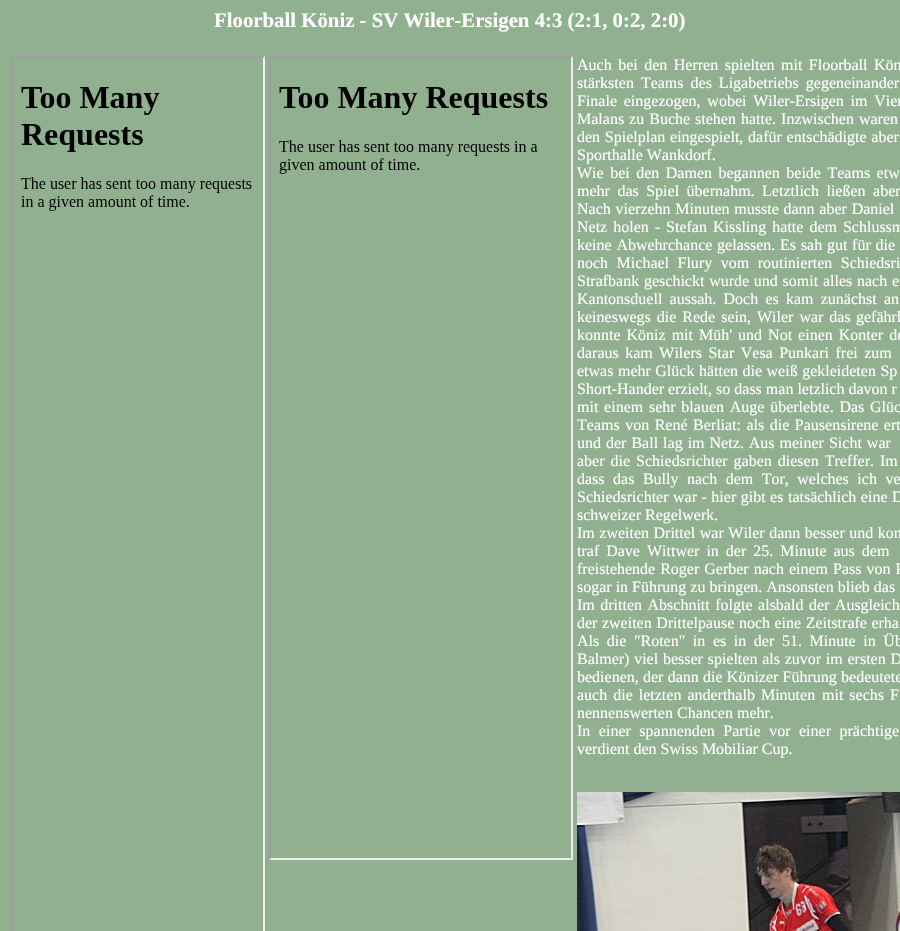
void draw(SkCanvas* canvas) {
	SkPaint fill;
	fill.setAntiAlias(true);
	auto makeFont = [&](const char* family, int weight, float size, bool italic = false) {
		SkFontStyle style(weight, SkFontStyle::kNormal_Width,
			italic ? SkFontStyle::kItalic_Slant : SkFontStyle::kUpright_Slant);
		SkFont result(fontMgr->matchFamilyStyle(family, style), size);
		result.setSubpixel(true);
		return result;
	};
	auto text = [&](const char* s, float x, float y, const SkFont& font) {
		canvas->drawString(s, x, y, font, fill);
	};
	auto spacedText = [&](const char* s, float x, float y, const SkFont& font, const SkPaint& ink, float letter, float word) {
		std::vector<SkGlyphID> glyphs(font.countText(s, strlen(s), SkTextEncoding::kUTF8));
		std::vector<float> xs(glyphs.size());
		font.textToGlyphs(s, strlen(s), SkTextEncoding::kUTF8, glyphs);
		font.getXPos(glyphs, xs, x);
		float extra = 0;
		for (size_t i = 0; i < glyphs.size(); i++) {
			xs[i] += extra;
			extra += letter + word * (glyphs[i] == font.unicharToGlyph(' '));
		}
		canvas->drawTextBlob(SkTextBlob::MakeFromPosHGlyphs(glyphs, xs, y, font), 0, 0, ink);
	};
	auto picture = [&](const char* path, float l, float t, float r, float b) {
		auto image = SkImages::DeferredFromEncodedData(SkData::MakeFromFileName(path));
		canvas->drawImageRect(image, SkRect::MakeLTRB(l, t, r, b), SkSamplingOptions());
	};
	canvas->clear(0xFF90B090);
	fill.setColor(0xFF9F9F9F);
	canvas->drawPath(SkPathBuilder().moveTo(11, 56).lineTo(265, 56).lineTo(263, 58).lineTo(13, 58).close().detach(), fill);
	canvas->drawPath(SkPathBuilder().moveTo(11, 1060).lineTo(11, 56).lineTo(13, 58).lineTo(13, 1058).close().detach(), fill);
	picture("image0.png", 21, 87, 252, 211);
	fill.setColor(0xFFEEEEEE);
	canvas->drawPath(SkPathBuilder().moveTo(265, 56).lineTo(265, 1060).lineTo(263, 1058).lineTo(263, 58).close().detach(), fill);
	fill.setColor(0xFF9F9F9F);
	canvas->drawPath(SkPathBuilder().moveTo(269, 56).lineTo(573, 56).lineTo(571, 58).lineTo(271, 58).close().detach(), fill);
	fill.setColor(0xFFEEEEEE);
	canvas->drawPath(SkPathBuilder().moveTo(573, 56).lineTo(573, 860).lineTo(571, 858).lineTo(571, 58).close().detach(), fill);
	canvas->drawPath(SkPathBuilder().moveTo(573, 860).lineTo(269, 860).lineTo(271, 858).lineTo(571, 858).close().detach(), fill);
	fill.setColor(0xFF9F9F9F);
	canvas->drawPath(SkPathBuilder().moveTo(269, 860).lineTo(269, 56).lineTo(271, 58).lineTo(271, 858).close().detach(), fill);
	picture("image1.png", 279, 87, 548, 174);
	picture("image2.png", 577, 792, 900, 931);
	auto font1 = makeFont("Liberation Serif", 700, 20.8f);
	fill.setColor(0xFFFFFFFF);
	text("Floorball Köniz - SV Wiler-Ersigen 4:3 (2:1, 0:2, 2:0)", 214, 27, font1);
	auto font2 = makeFont("Liberation Serif", 400, 16);
	spacedText("Auch bei den Herren spielten mit Floorball Kön", 577, 70, font2, fill, 0, 2.5f);
	spacedText("stärksten Teams des Ligabetriebs gegeneinander", 577, 88, font2, fill, 0, 3);
	spacedText("Finale eingezogen, wobei Wiler-Ersigen im Vier", 577, 106, font2, fill, 0, 2.75f);
	spacedText("Malans zu Buche stehen hatte. Inzwischen waren", 577, 124, font2, fill, 0, 1);
	spacedText("den Spielplan eingespielt, dafür entschädigte aber", 577, 142, font2, fill, 0, 0.75f);
	text("Sporthalle Wankdorf.", 577, 160, font2);
	spacedText("Wie bei den Damen begannen beide Teams etw", 577, 178, font2, fill, 0, 2.5f);
	spacedText("mehr das Spiel übernahm. Letztlich ließen aber", 577, 196, font2, fill, 0, 3.5f);
	spacedText("Nach vierzehn Minuten musste dann aber Daniel", 577, 214, font2, fill, 0, 0.75f);
	spacedText("Netz holen - Stefan Kissling hatte dem Schlussm", 577, 232, font2, fill, 0, 2);
	spacedText("keine Abwehrchance gelassen. Es sah gut für die", 577, 250, font2, fill, 0, 0.75f);
	spacedText("noch Michael Flury vom routinierten Schiedsri", 577, 268, font2, fill, 0, 4.5f);
	spacedText("Strafbank geschickt wurde und somit alles nach e", 577, 286, font2, fill, 0, 0.75f);
	spacedText("Kantonsduell aussah. Doch es kam zunächst an", 577, 304, font2, fill, 0, 3.25f);
	spacedText("keineswegs die Rede sein, Wiler war das", 577, 322, font2, fill, 0, 2);
	spacedText("gefährl", 856, 322, font2, fill, 0, 2);
	spacedText("konnte Köniz mit Müh' und Not einen Konter de", 577, 340, font2, fill, 0, 2);
	spacedText("daraus kam Wilers Star Vesa Punkari frei zum", 577, 358, font2, fill, 0, 2.5f);
	spacedText("etwas mehr Glück hätten die weiß gekleideten Sp", 577, 376, font2, fill, 0, 0.5f);
	text("Short-Hander erzielt, so dass man letzlich davon r", 577, 394, font2);
	spacedText("mit einem sehr blauen Auge überlebte. Das Glüc", 577, 412, font2, fill, 0, 1.75f);
	spacedText("Teams von René Berliat: als die Pausensirene ert", 577, 430, font2, fill, 0, 1.5f);
	spacedText("und der Ball lag im Netz. Aus meiner Sicht war", 577, 448, font2, fill, 0, 1);
	spacedText("aber die Schiedsrichter gaben diesen Treffer. Im", 577, 466, font2, fill, 0, 2);
	spacedText("dass das Bully nach dem Tor, welches ich ve", 577, 484, font2, fill, 0, 4.5f);
	spacedText("Schiedsrichter war - hier gibt es tatsächlich eine D", 577, 502, font2, fill, 0, 0.5f);
	text("schweizer Regelwerk.", 577, 520, font2);
	spacedText("Im zweiten Drittel war Wiler dann besser und kon", 577, 538, font2, fill, 0, 0.5f);
	spacedText("traf Dave Wittwer in der 25. Minute aus dem", 577, 556, font2, fill, 0, 3);
	spacedText("freistehende Roger Gerber nach einem Pass von P", 577, 574, font2, fill, 0, 1);
	text("sogar in Führung zu bringen. Ansonsten blieb das", 577, 592, font2);
	spacedText("Im dritten Abschnitt folgte alsbald der Ausgleich", 577, 610, font2, fill, 0, 1.5f);
	spacedText("der zweiten Drittelpause noch eine Zeitstrafe erha", 577, 628, font2, fill, 0, 0.5f);
	spacedText("Als die \"Roten\" in es in der 51. Minute in Üb", 577, 646, font2, fill, 0, 3.6f);
	spacedText("Balmer) viel besser spielten als zuvor im ersten D", 577, 664, font2, fill, 0, 0.75f);
	spacedText("bedienen, der dann die Könizer Führung bedeutete", 577, 682, font2, fill, 0, 0.25f);
	spacedText("auch die letzten anderthalb Minuten", 577, 700, font2, fill, 0, 2);
	spacedText("mit sechs F", 822, 700, font2, fill, 0, 2);
	text("nennenswerten Chancen mehr.", 577, 718, font2);
	spacedText("In einer spannenden Partie vor einer prächtige", 577, 736, font2, fill, 0, 4.5f);
	text("verdient den Swiss Mobiliar Cup.", 577, 754, font2);
}
